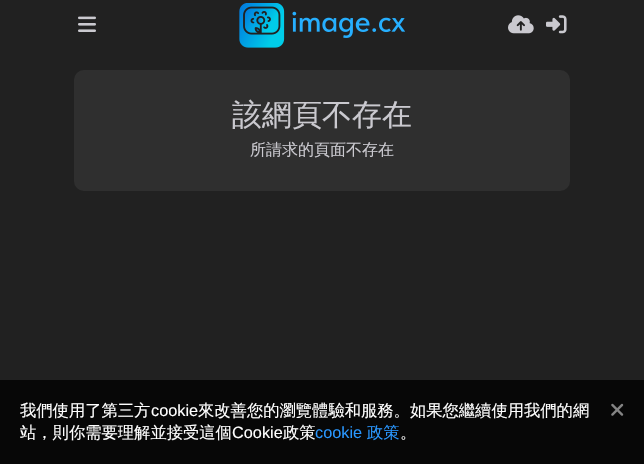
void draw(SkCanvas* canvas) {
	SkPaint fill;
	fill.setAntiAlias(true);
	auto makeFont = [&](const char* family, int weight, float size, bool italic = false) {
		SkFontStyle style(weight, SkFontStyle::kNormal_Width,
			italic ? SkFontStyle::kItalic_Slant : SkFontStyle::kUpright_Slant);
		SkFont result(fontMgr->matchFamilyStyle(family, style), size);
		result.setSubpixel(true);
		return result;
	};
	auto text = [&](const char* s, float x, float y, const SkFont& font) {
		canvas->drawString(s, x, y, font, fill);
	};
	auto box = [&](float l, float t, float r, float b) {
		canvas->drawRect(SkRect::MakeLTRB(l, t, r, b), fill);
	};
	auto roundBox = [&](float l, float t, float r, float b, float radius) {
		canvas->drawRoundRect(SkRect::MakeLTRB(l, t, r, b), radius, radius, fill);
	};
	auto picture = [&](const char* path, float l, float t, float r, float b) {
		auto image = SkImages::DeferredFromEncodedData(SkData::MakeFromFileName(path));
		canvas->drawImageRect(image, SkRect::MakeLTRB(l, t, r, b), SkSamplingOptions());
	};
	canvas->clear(0xFF212121);
	picture("image0.png", 78, 16, 96, 32);
	picture("image1.png", 239, 3, 405, 48);
	picture("image2.png", 508, 15, 534, 34);
	picture("image3.png", 546, 15, 567, 34);
	fill.setColor(0xFF2F2F2F);
	roundBox(74, 70, 570, 191, 10);
	fill.setColor(0xFF070707);
	box(0, 380, 644, 464);
	picture("image4.png", 611, 403, 624, 416);
	auto font1 = makeFont("WenQuanYi Zen Hei", 500, 30);
	fill.setColor(0xFFCAC9CF);
	text("該網頁不存在", 232, 125, font1);
	auto font2 = makeFont("WenQuanYi Zen Hei", 500, 16);
	text("所請求的頁面不存在", 250, 155, font2);
	auto font3 = makeFont("WenQuanYi Zen Hei", 500, 16.3f);
	fill.setColor(0xFFFFFFFF);
	text("我們使用了第三方", 20, 416, font3);
	auto font4 = makeFont("Liberation Sans", 400, 16.3f);
	text("cookie", 151, 416, font4);
	text("來改善您的瀏覽體驗和服務。如果您繼續使用我們的網", 198, 416, font3);
	text("站，則你需要理解並接受這個", 20, 438, font3);
	text("Cookie", 232, 438, font4);
	text("政策", 283, 438, font3);
	fill.setColor(0xFF2997FF);
	text("cookie", 315, 438, font4);
	text("政策", 367, 438, font3);
	fill.setColor(0xFFFFFFFF);
	text("。", 400, 438, font3);
}
